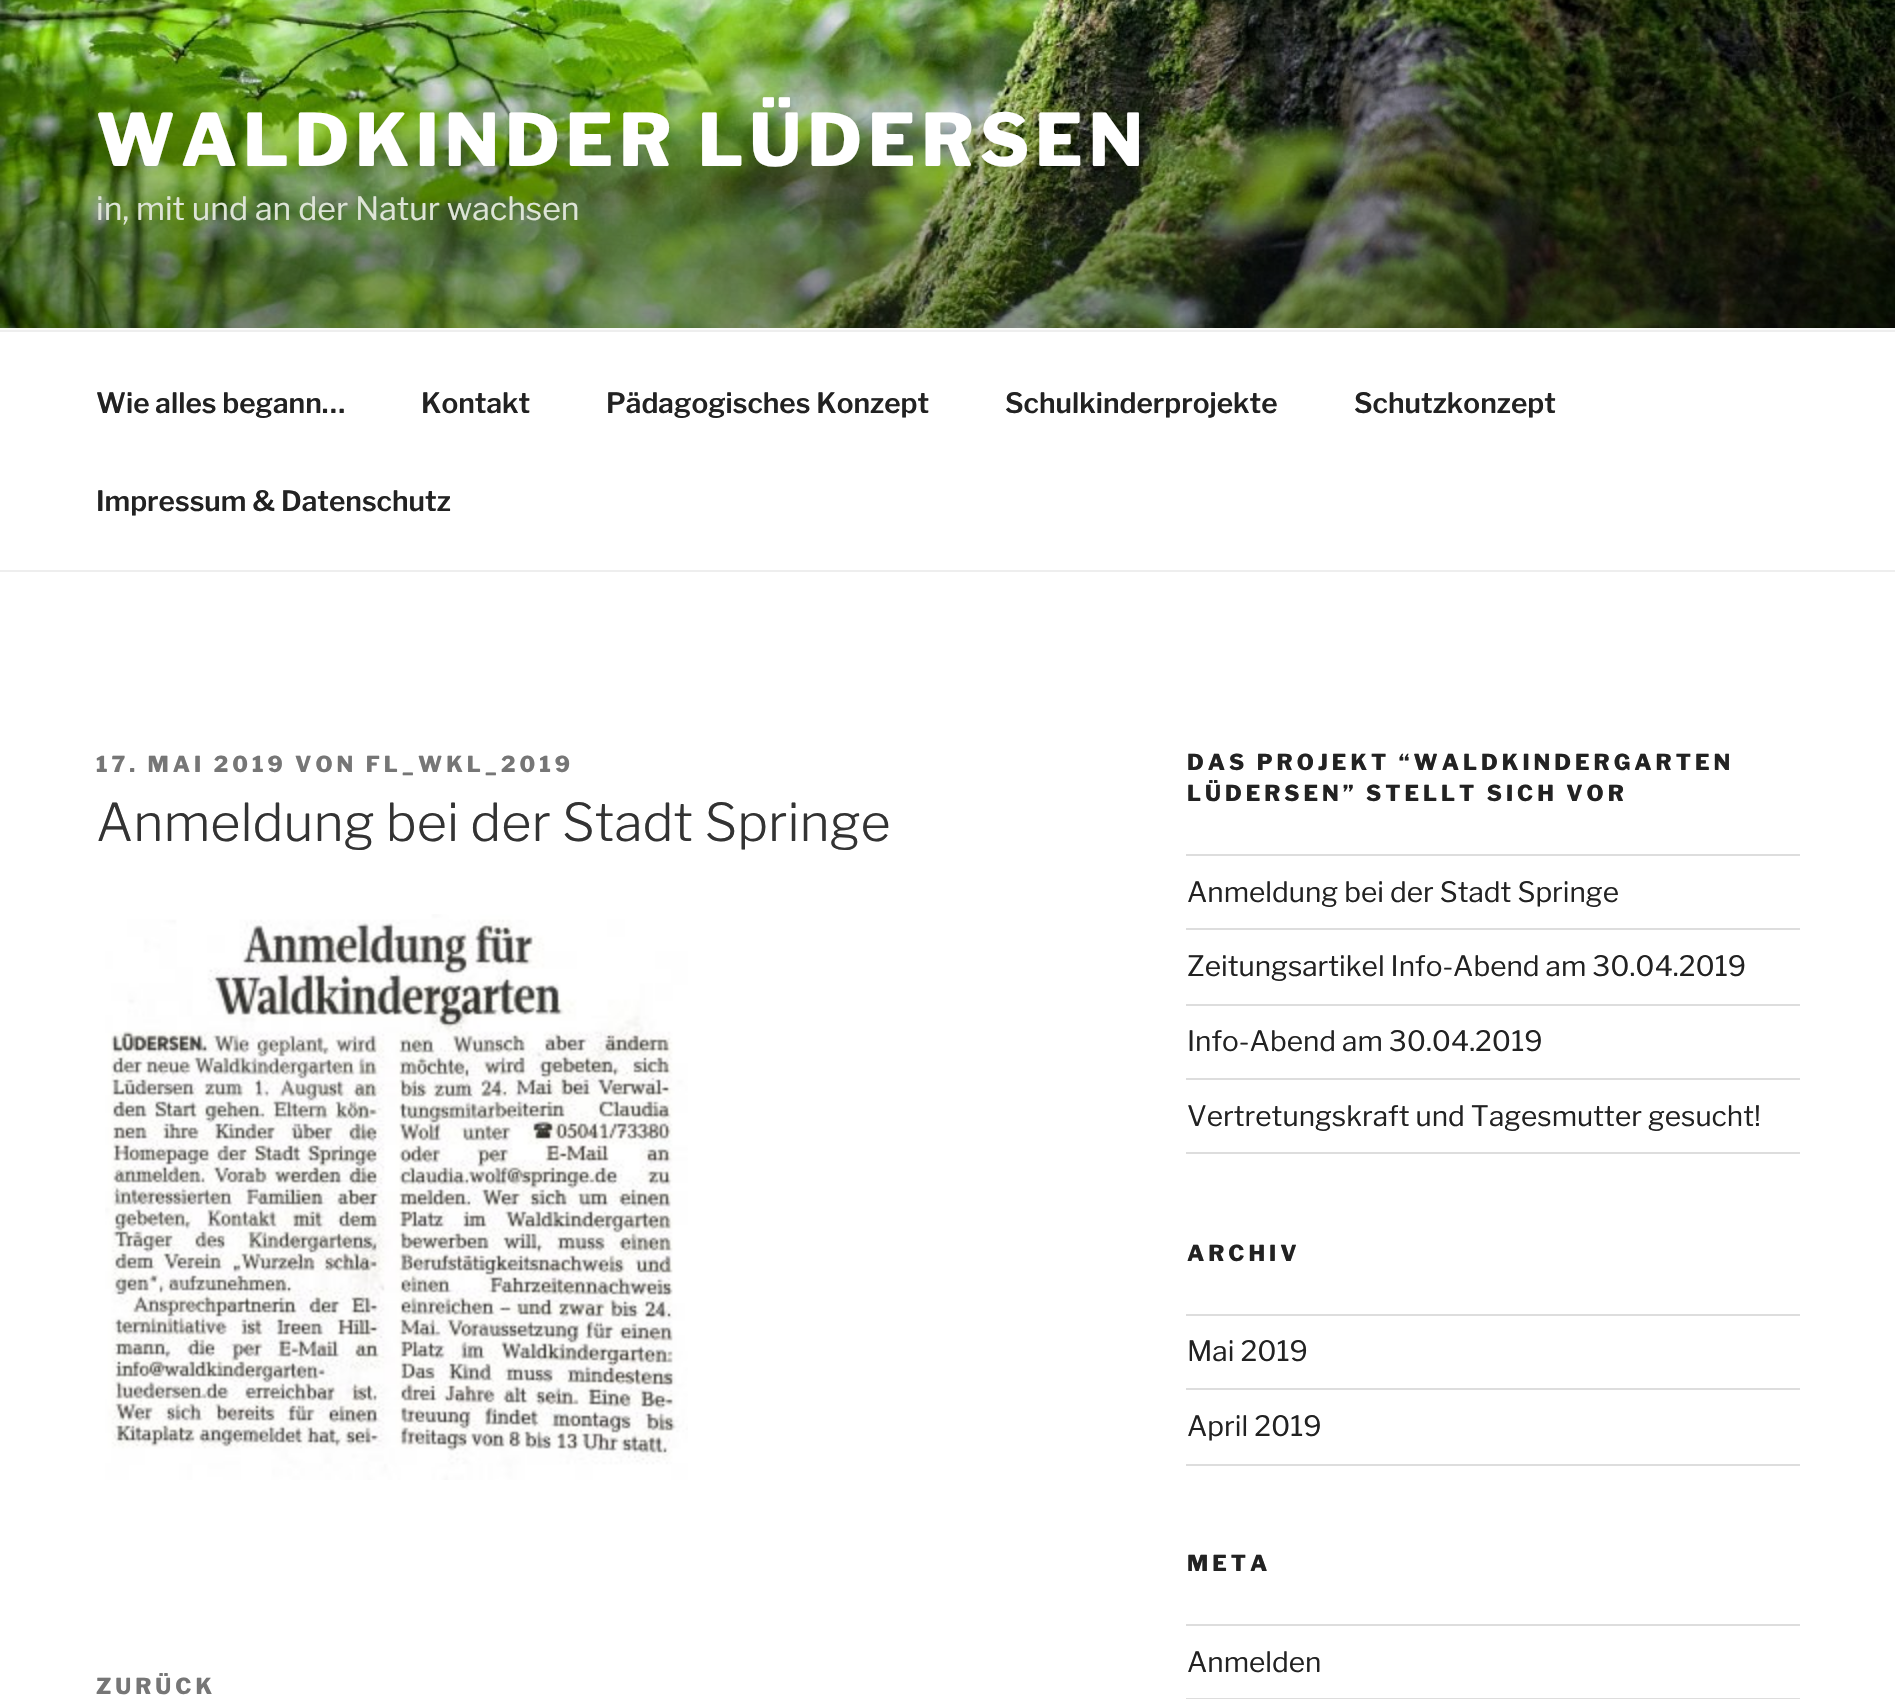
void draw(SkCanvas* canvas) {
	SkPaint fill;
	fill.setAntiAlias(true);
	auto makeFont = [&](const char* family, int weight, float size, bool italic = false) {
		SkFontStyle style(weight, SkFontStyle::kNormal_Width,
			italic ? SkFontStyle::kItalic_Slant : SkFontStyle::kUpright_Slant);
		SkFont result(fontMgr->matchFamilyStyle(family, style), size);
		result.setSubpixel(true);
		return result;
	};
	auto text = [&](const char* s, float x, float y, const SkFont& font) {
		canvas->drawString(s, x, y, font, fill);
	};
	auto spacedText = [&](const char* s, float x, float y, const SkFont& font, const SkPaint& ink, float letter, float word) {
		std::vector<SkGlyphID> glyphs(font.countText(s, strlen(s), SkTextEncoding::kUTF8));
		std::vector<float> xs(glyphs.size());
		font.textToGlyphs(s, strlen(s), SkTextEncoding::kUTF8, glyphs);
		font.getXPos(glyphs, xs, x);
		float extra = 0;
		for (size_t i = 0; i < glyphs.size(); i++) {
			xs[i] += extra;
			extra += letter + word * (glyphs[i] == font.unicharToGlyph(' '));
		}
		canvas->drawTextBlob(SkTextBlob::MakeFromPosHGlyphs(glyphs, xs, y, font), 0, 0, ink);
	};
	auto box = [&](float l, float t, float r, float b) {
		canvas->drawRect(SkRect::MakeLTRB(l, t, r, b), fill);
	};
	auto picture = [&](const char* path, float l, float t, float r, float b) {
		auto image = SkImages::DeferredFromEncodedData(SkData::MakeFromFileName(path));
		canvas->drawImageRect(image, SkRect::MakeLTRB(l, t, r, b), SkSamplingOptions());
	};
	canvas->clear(0xFFFFFFFF);
	fill.setColor(0xFFFAFAFA);
	box(0, 328, 1895, 330);
	picture("image0.png", 0, 0, 1895, 328);
	fill.setColor(0xFFEEEEEE);
	box(0, 330, 1895, 332);
	box(0, 570, 1895, 572);
	picture("image1.png", 105, 914, 688, 1480);
	fill.setColor(0xFFDDDDDD);
	box(1186, 854, 1800, 856);
	box(1186, 928, 1800, 930);
	box(1186, 1004, 1800, 1006);
	box(1186, 1078, 1800, 1080);
	box(1186, 1152, 1800, 1154);
	box(1186, 1314, 1800, 1316);
	box(1186, 1388, 1800, 1390);
	box(1186, 1464, 1800, 1466);
	box(1186, 1624, 1800, 1626);
	box(1186, 1698, 1800, 1699);
	auto font1 = makeFont("Libre Franklin", 800, 72);
	fill.setColor(0xFFFFFFFF);
	spacedText("WALDKINDER LÜDERSEN", 96, 166, font1, fill, 5.75f, 0);
	auto font2 = makeFont("Libre Franklin", 400, 32);
	fill.setColor(0xFFDDE4D7);
	text("in, mit und an der Natur wachsen", 96, 220, font2);
	auto font3 = makeFont("Libre Franklin", 600, 28);
	fill.setColor(0xFF222222);
	text("Wie alles begann…", 96, 413, font3);
	text("Kontakt", 421, 413, font3);
	text("Pädagogisches Konzept", 606, 413, font3);
	text("Schulkinderprojekte", 1005, 413, font3);
	text("Schutzkonzept", 1354, 413, font3);
	text("Impressum & Datenschutz", 96, 511, font3);
	auto font4 = makeFont("Libre Franklin", 800, 22);
	fill.setColor(0xFF767676);
	spacedText("17. MAI 2019 VON FL_WKL_2019", 96, 772, font4, fill, 4, 0);
	auto font5 = makeFont("Libre Franklin", 300, 52);
	fill.setColor(0xFF333333);
	text("Anmeldung bei der Stadt Springe", 96, 841, font5);
	fill.setColor(0xFF767676);
	spacedText("ZURÜCK", 96, 1694, font4, fill, 4, 0);
	fill.setColor(0xFF222222);
	spacedText("DAS PROJEKT “WALDKINDERGARTEN", 1187, 770, font4, fill, 4, 0);
	spacedText("LÜDERSEN” STELLT SICH VOR", 1187, 801, font4, fill, 4, 0);
	auto font6 = makeFont("Libre Franklin", 400, 28);
	text("Anmeldung bei der Stadt Springe", 1187, 902, font6);
	text("Zeitungsartikel Info-Abend am 30.04.2019", 1187, 976, font6);
	text("Info-Abend am 30.04.2019", 1187, 1051, font6);
	text("Vertretungskraft und Tagesmutter gesucht!", 1187, 1126, font6);
	spacedText("ARCHIV", 1187, 1261, font4, fill, 4, 0);
	text("Mai 2019", 1187, 1361, font6);
	text("April 2019", 1187, 1436, font6);
	spacedText("META", 1187, 1571, font4, fill, 4, 0);
	text("Anmelden", 1187, 1672, font6);
}
